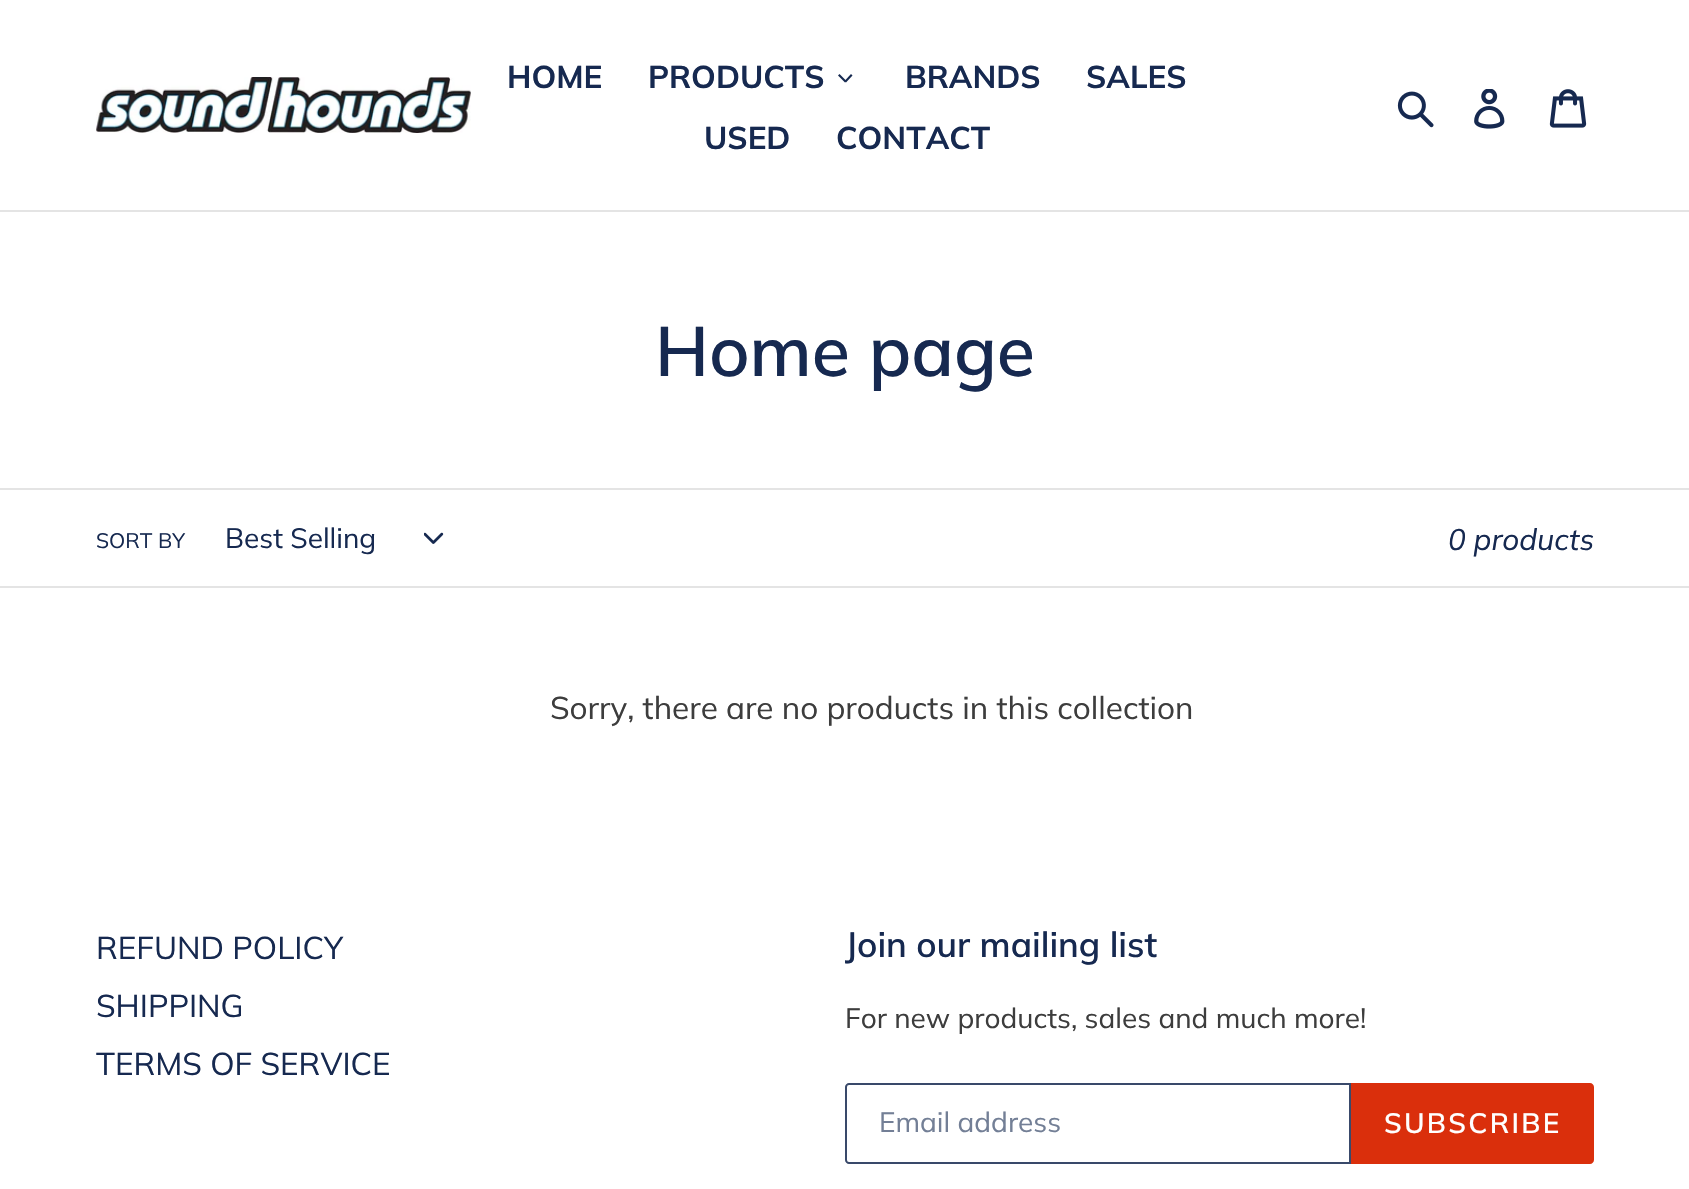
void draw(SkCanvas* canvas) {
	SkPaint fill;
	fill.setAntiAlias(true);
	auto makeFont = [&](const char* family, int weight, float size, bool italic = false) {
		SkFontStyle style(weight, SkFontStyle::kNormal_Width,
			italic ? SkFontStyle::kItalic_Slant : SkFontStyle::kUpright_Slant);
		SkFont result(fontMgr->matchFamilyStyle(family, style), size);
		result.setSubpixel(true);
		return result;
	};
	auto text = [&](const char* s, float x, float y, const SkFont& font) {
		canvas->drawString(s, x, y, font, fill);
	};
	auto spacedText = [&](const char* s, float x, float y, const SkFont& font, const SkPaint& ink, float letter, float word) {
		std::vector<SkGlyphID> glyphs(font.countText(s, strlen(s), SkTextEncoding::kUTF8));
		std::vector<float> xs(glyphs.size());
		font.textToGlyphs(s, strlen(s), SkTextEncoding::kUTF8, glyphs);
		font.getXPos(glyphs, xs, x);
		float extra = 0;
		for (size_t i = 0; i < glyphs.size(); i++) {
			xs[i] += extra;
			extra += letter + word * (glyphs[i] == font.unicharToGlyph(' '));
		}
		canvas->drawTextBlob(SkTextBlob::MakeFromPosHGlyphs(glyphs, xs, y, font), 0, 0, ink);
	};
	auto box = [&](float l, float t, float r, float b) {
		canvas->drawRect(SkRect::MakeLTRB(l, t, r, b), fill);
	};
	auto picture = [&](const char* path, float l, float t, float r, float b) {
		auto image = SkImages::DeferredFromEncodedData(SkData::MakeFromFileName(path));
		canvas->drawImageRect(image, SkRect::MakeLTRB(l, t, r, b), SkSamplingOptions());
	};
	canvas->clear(0xFFFFFFFF);
	fill.setColor(0xFFE4E4E4);
	box(0, 210, 1689, 212);
	picture("image0.png", 96, 77, 471, 133);
	fill.setColor(0xFF162950);
	canvas->drawPath(SkPathBuilder().moveTo(851, 74).lineTo(852.5f, 75.5f).lineTo(846, 82.5f).lineTo(844.5f, 81).close().detach(), fill);
	canvas->drawPath(SkPathBuilder().moveTo(839.5f, 74).lineTo(846.5f, 81).lineTo(845, 82.5f).lineTo(838, 75.5f).close().detach(), fill);
	picture("image1.png", 1397, 91, 1434, 128);
	picture("image2.png", 1474, 89, 1505, 129);
	picture("image3.png", 1549, 89, 1587, 128);
	fill.setColor(0xFFE4E4E4);
	box(0, 488, 1689, 490);
	box(0, 586, 1689, 588);
	picture("image4.png", 424, 532, 444, 544);
	fill.setStyle(SkPaint::kStroke_Style);
	fill.setStrokeWidth(2);
	fill.setColor(0xFF39496A);
	canvas->drawPath(SkPathBuilder().moveTo(849, 1084).lineTo(1350, 1084).lineTo(1350, 1163).lineTo(849, 1163).cubicTo(847.5f, 1163, 846, 1161.5f, 846, 1160).lineTo(846, 1087).cubicTo(846, 1085.5f, 847.5f, 1084, 849, 1084).close().detach(), fill);
	fill.setStyle(SkPaint::kFill_Style);
	fill.setColor(0xFFDA2F0C);
	canvas->drawPath(SkPathBuilder().moveTo(1351, 1083).lineTo(1590, 1083).cubicTo(1592, 1083, 1594, 1085, 1594, 1087).lineTo(1594, 1160).cubicTo(1594, 1162, 1592, 1164, 1590, 1164).lineTo(1351, 1164).close().detach(), fill);
	auto font1 = makeFont("Muli", 700, 31.5f);
	fill.setColor(0xFF162950);
	text("HOME", 507, 88, font1);
	text("PRODUCTS", 648, 88, font1);
	text("BRANDS", 905, 88, font1);
	text("SALES", 1086, 88, font1);
	text("USED", 704, 149, font1);
	text("CONTACT", 836, 149, font1);
	auto font2 = makeFont("Muli", 600, 70);
	text("Home page", 655, 376, font2);
	auto font3 = makeFont("Muli", 400, 21);
	text("SORT BY", 96, 548, font3);
	auto font4 = makeFont("Muli", 400, 28);
	text("Best Selling", 225, 548, font4);
	auto font5 = makeFont("Muli", 400, 29.75f, true);
	text("0 products", 1448, 550, font5);
	auto font6 = makeFont("Muli", 400, 31.5f);
	fill.setColor(0xFF3D3D3D);
	text("Sorry, there are no products in this collection", 550, 719, font6);
	fill.setColor(0xFF162950);
	text("REFUND POLICY", 96, 959, font6);
	text("SHIPPING", 96, 1017, font6);
	text("TERMS OF SERVICE", 96, 1075, font6);
	auto font7 = makeFont("Muli", 600, 35);
	text("Join our mailing list", 845, 957, font7);
	fill.setColor(0xFF3D3D3D);
	text("For new products, sales and much more!", 845, 1028, font4);
	fill.setColor(0xFF737F96);
	text("Email address", 879, 1132, font4);
	auto font8 = makeFont("Muli", 600, 28);
	fill.setColor(0xFFFFFFFF);
	spacedText("SUBSCRIBE", 1384, 1133, font8, fill, 2.25f, 0);
}
